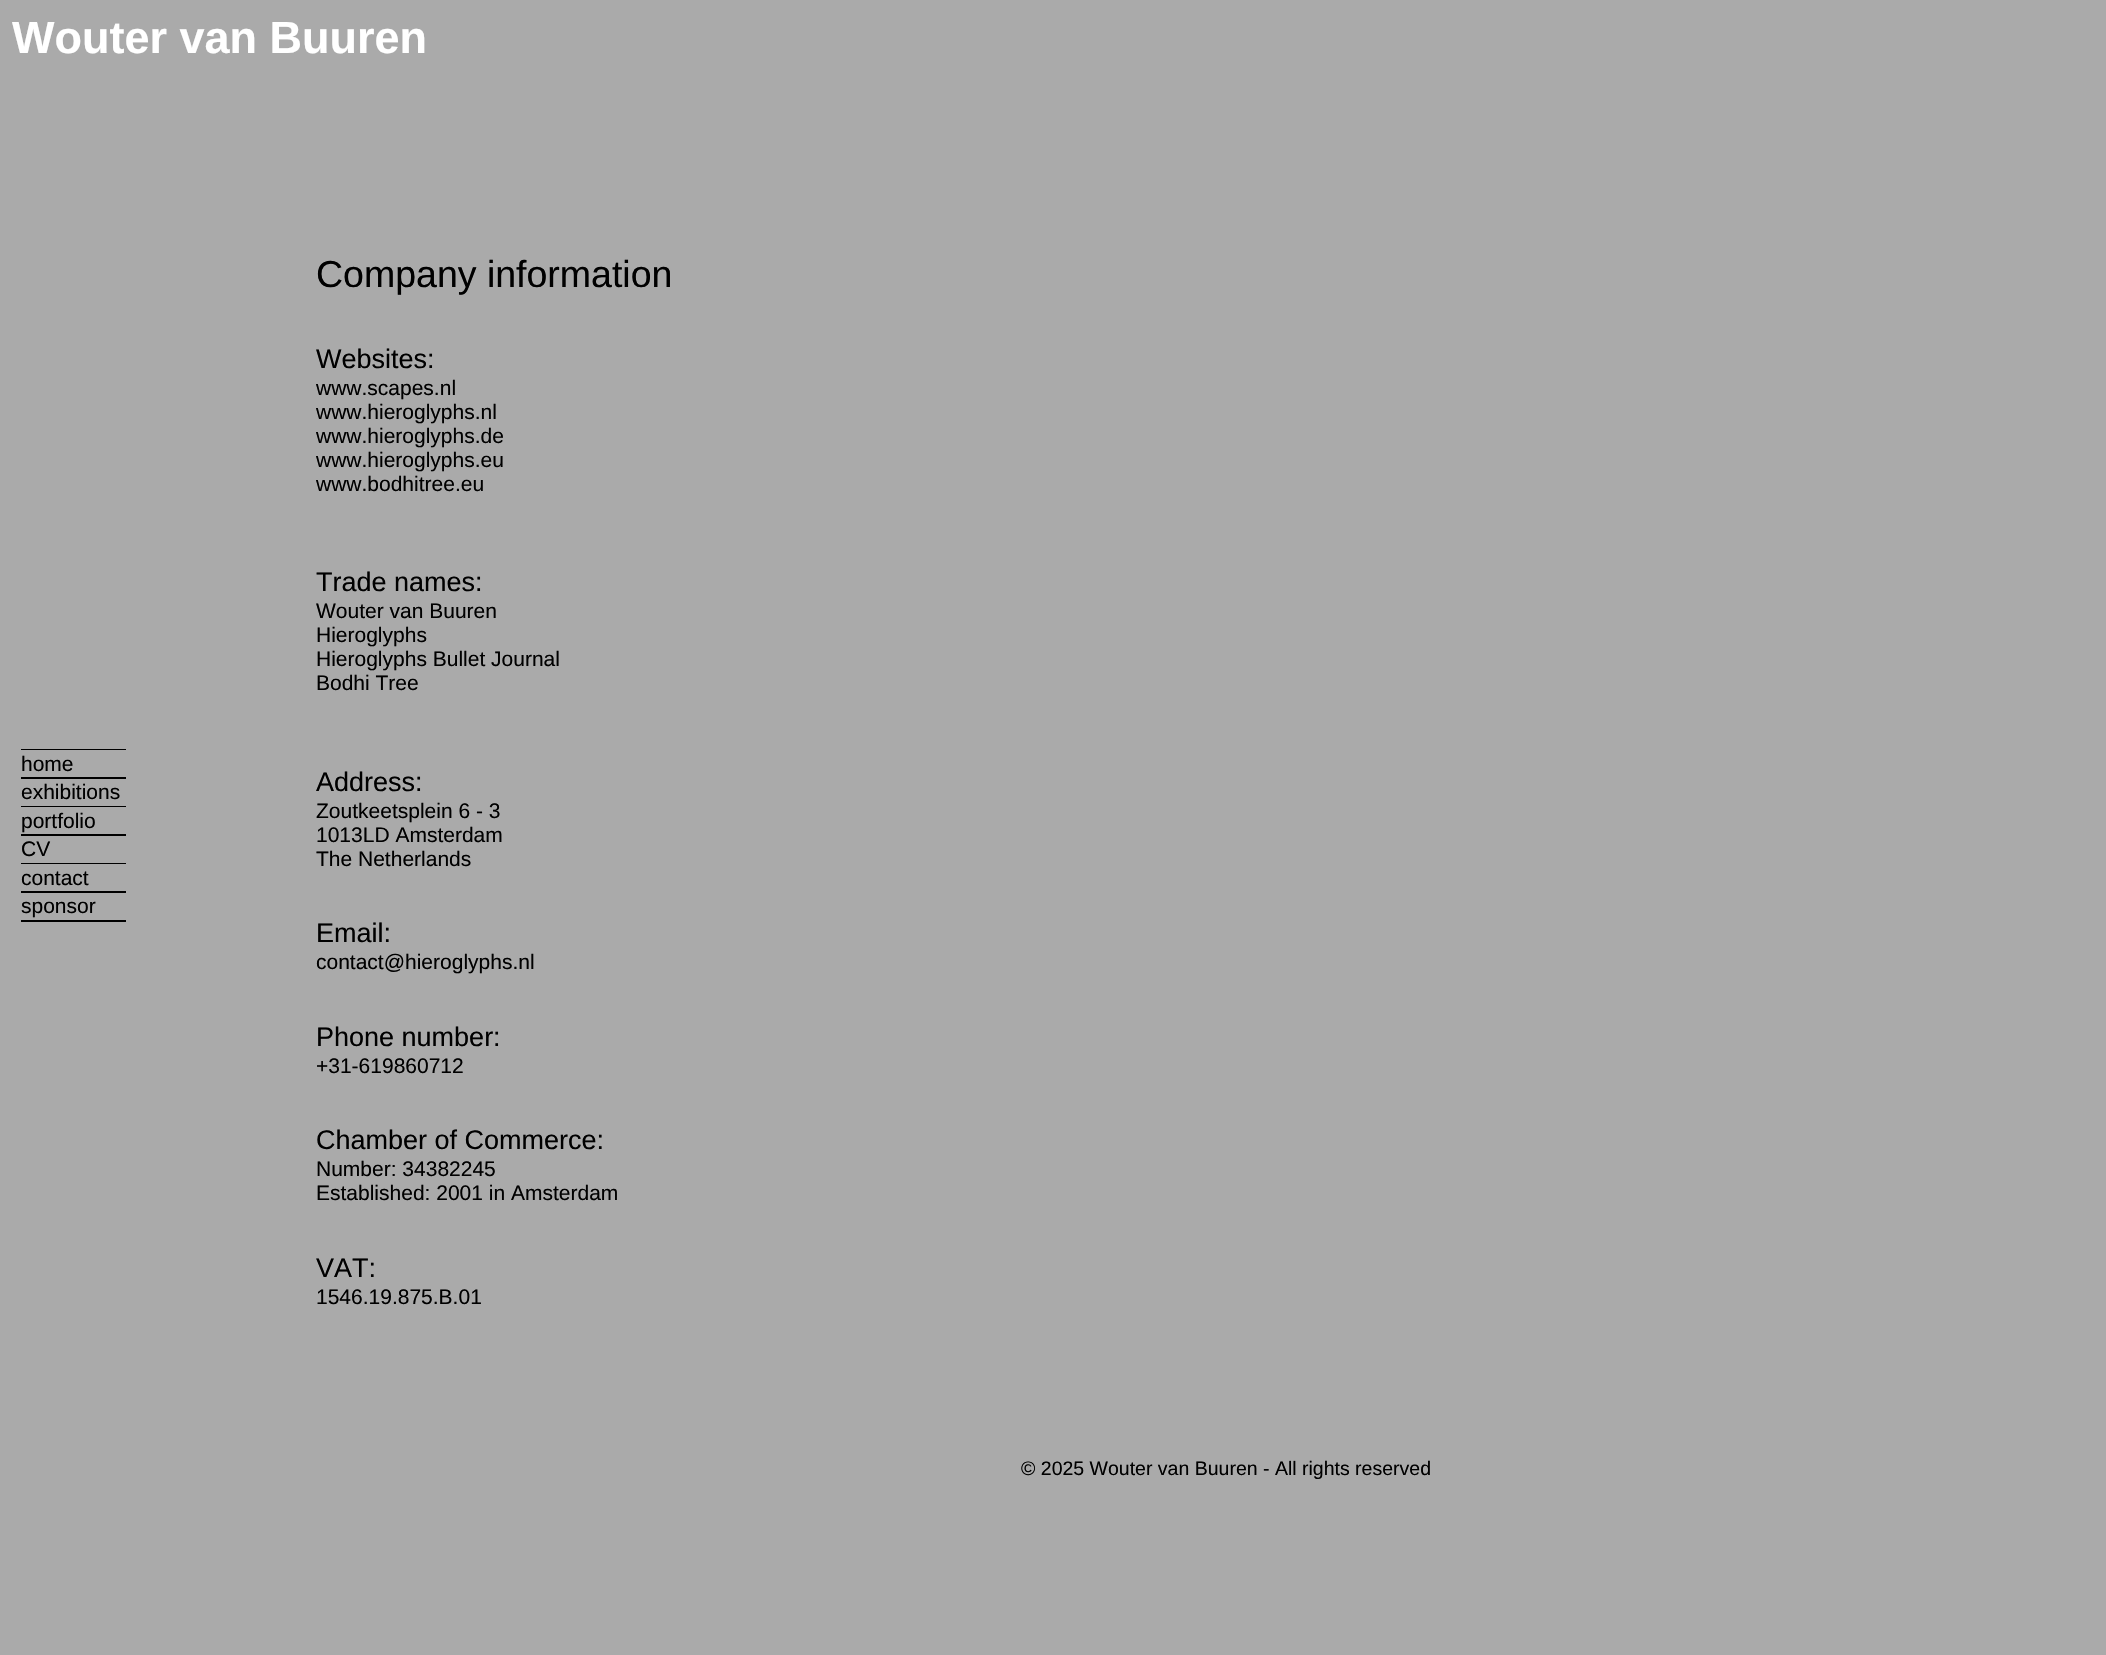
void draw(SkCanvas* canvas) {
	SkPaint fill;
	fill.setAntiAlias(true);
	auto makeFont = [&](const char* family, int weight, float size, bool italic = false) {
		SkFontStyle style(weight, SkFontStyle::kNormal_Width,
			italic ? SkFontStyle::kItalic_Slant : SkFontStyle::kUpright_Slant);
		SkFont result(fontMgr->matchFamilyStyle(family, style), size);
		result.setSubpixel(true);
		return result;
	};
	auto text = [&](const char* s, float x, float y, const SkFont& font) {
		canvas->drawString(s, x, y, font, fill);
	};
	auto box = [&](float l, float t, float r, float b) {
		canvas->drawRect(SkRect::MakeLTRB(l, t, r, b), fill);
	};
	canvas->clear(0xFFAAAAAA);
	fill.setColor(0xFF000000);
	box(21, 749, 126, 750);
	box(21, 777, 126, 779);
	box(21, 806, 126, 807);
	box(21, 834, 126, 836);
	box(21, 863, 126, 864);
	box(21, 891, 126, 893);
	box(21, 920, 126, 922);
	auto font1 = makeFont("Liberation Sans", 700, 45);
	fill.setColor(0xFFFFFFFF);
	text("Wouter van Buuren", 12, 53, font1);
	auto font2 = makeFont("Liberation Sans", 400, 21);
	fill.setColor(0xFF000000);
	text("home", 21, 771, font2);
	text("exhibitions", 21, 799, font2);
	text("portfolio", 21, 828, font2);
	text("CV", 21, 856, font2);
	text("contact", 21, 885, font2);
	text("sponsor", 21, 913, font2);
	auto font3 = makeFont("Liberation Sans", 400, 37.5f);
	text("Company information", 316, 287, font3);
	auto font4 = makeFont("Liberation Sans", 400, 27);
	text("Websites:", 316, 368, font4);
	text("www.scapes.nl", 316, 395, font2);
	text("www.hieroglyphs.nl", 316, 419, font2);
	text("www.hieroglyphs.de", 316, 443, font2);
	text("www.hieroglyphs.eu", 316, 467, font2);
	text("www.bodhitree.eu", 316, 491, font2);
	text("Trade names:", 316, 591, font4);
	text("Wouter van Buuren", 316, 618, font2);
	text("Hieroglyphs", 316, 642, font2);
	text("Hieroglyphs Bullet Journal", 316, 666, font2);
	text("Bodhi Tree", 316, 690, font2);
	text("Address:", 316, 791, font4);
	text("Zoutkeetsplein 6 - 3", 316, 818, font2);
	text("1013LD Amsterdam", 316, 842, font2);
	text("The Netherlands", 316, 866, font2);
	text("Email:", 316, 942, font4);
	text("contact@hieroglyphs.nl", 316, 969, font2);
	text("Phone number:", 316, 1046, font4);
	text("+31-619860712", 316, 1073, font2);
	text("Chamber of Commerce:", 316, 1149, font4);
	text("Number: 34382245", 316, 1176, font2);
	text("Established: 2001 in Amsterdam", 316, 1200, font2);
	text("VAT:", 316, 1277, font4);
	text("1546.19.875.B.01", 316, 1304, font2);
	auto font5 = makeFont("Liberation Sans", 400, 19.5f);
	text("© 2025 Wouter van Buuren - All rights reserved", 1021, 1475, font5);
}
